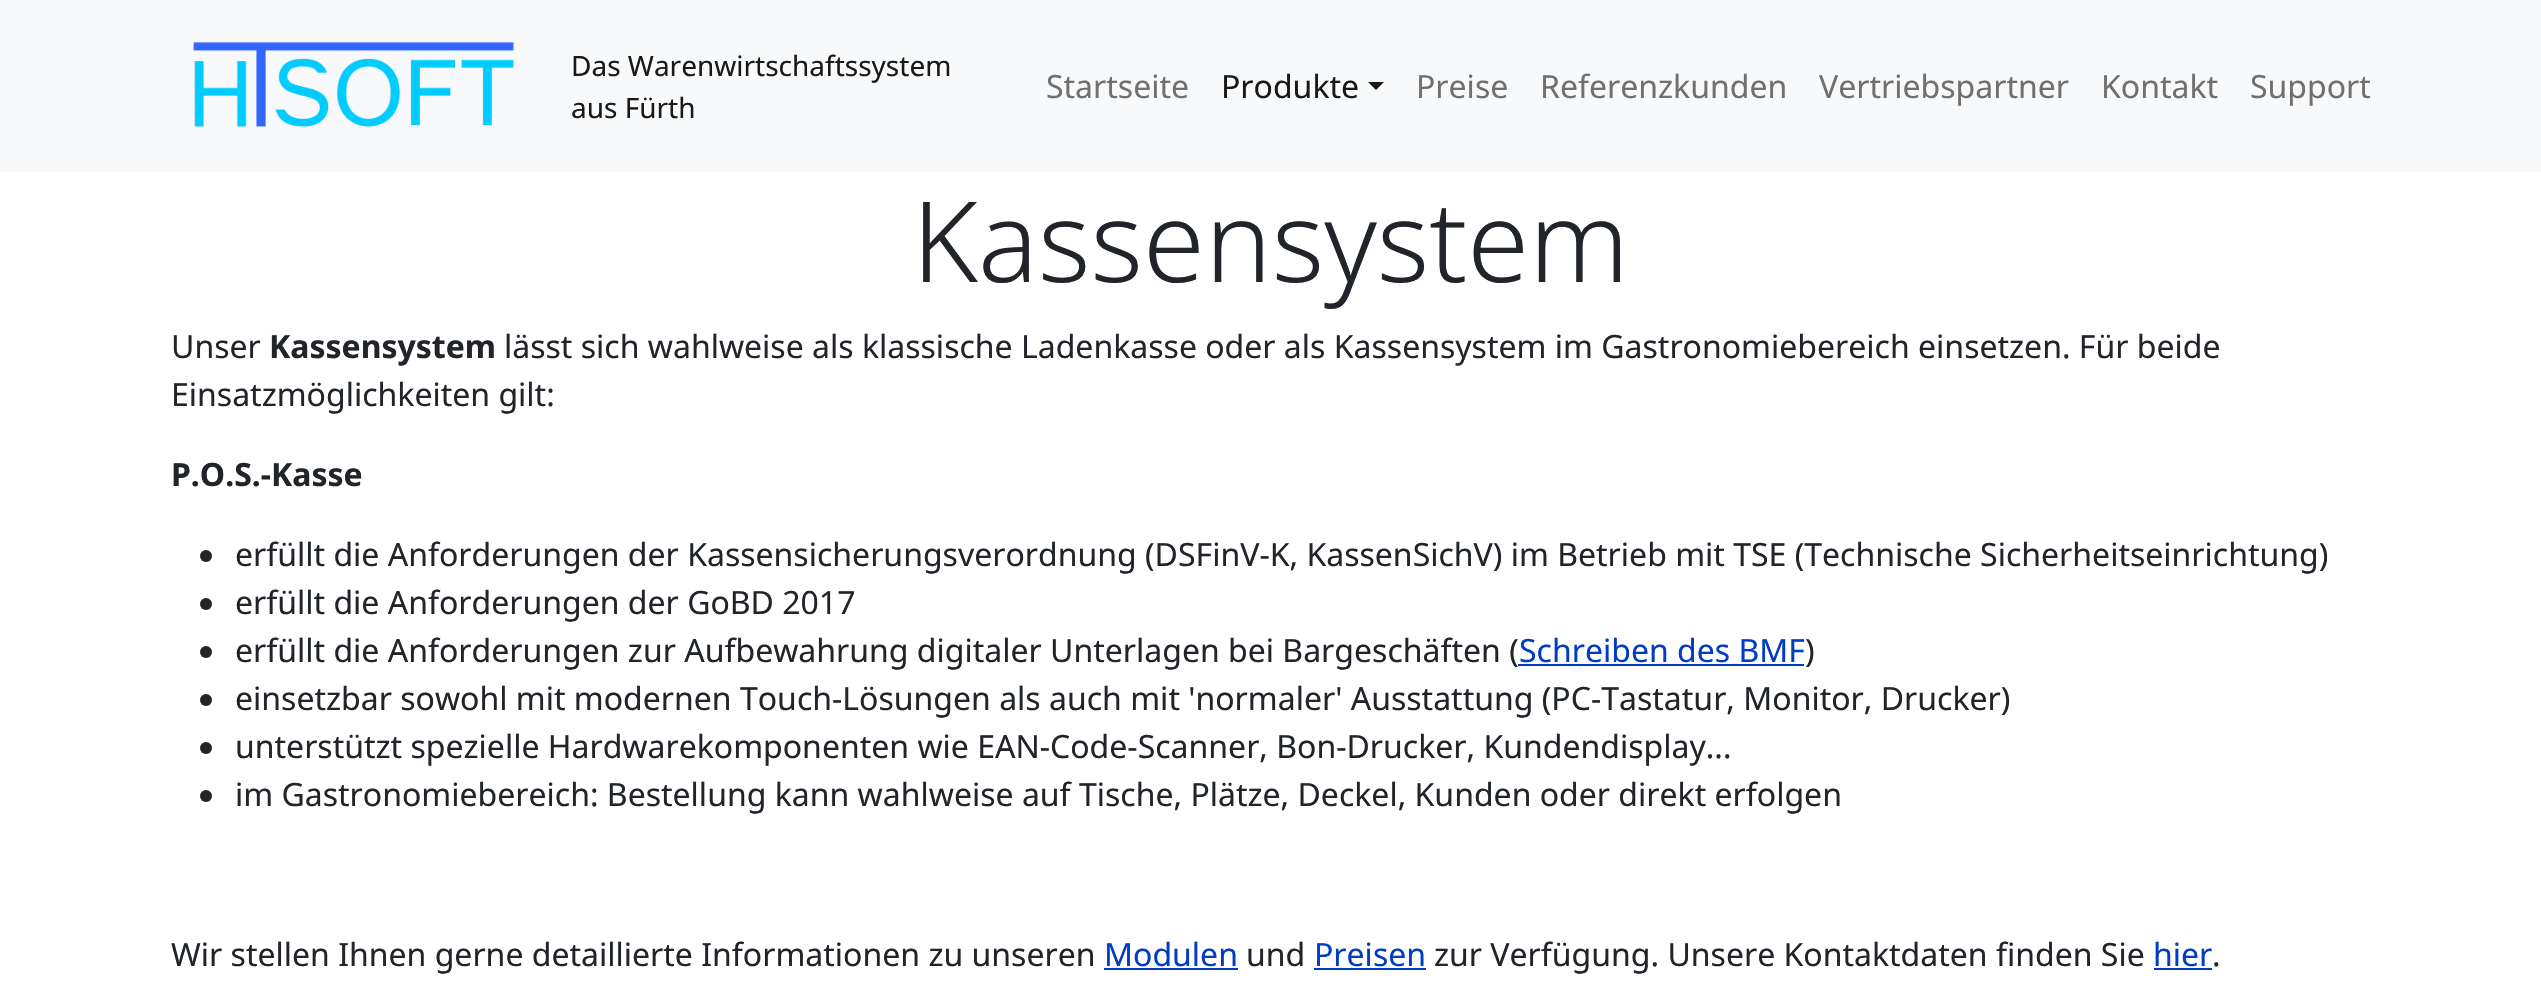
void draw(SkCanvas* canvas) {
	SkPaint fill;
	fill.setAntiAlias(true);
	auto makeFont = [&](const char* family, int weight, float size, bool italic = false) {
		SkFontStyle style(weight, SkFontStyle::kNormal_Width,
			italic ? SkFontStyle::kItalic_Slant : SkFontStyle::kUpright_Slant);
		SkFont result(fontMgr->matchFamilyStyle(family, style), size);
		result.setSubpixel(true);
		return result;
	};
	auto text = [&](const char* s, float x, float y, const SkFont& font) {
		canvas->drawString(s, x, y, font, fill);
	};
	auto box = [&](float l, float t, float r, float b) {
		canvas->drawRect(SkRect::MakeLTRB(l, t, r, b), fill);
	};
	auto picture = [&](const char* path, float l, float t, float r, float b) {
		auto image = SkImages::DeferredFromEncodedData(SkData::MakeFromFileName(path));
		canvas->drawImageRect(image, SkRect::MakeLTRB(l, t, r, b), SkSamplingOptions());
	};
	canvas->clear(0xFFFFFFFF);
	fill.setColor(0xFFF8F9FA);
	box(0, 0, 2541, 172);
	picture("image0.png", 193, 42, 514, 127);
	fill.setColor(0xFF191919);
	canvas->drawPath(SkPathBuilder().moveTo(1368, 82).lineTo(1384, 82).lineTo(1376, 90).close().detach(), fill);
	fill.setColor(0xFF212529);
	canvas->drawCircle(206, 556, 6, fill);
	canvas->drawCircle(206, 604, 6, fill);
	canvas->drawCircle(206, 652, 6, fill);
	fill.setColor(0xFF003CC5);
	box(1518, 664, 1804, 666);
	fill.setColor(0xFF212529);
	canvas->drawCircle(206, 700, 6, fill);
	canvas->drawCircle(206, 748, 6, fill);
	canvas->drawCircle(206, 796, 6, fill);
	fill.setColor(0xFF003CC5);
	box(1104, 968, 1238, 970);
	box(1314, 968, 1426, 970);
	box(2154, 968, 2212, 970);
	auto font1 = makeFont("Noto Sans", 400, 28);
	fill.setColor(0xFF191919);
	text("Das Warenwirtschaftssystem", 571, 76, font1);
	text("aus Fürth", 571, 118, font1);
	auto font2 = makeFont("Noto Sans", 400, 32);
	fill.setColor(0xFF707071);
	text("Startseite", 1046, 98, font2);
	fill.setColor(0xFF191919);
	text("Produkte", 1221, 98, font2);
	fill.setColor(0xFF707071);
	text("Preise", 1416, 98, font2);
	text("Referenzkunden", 1540, 98, font2);
	text("Vertriebspartner", 1819, 98, font2);
	text("Kontakt", 2101, 98, font2);
	text("Support", 2250, 98, font2);
	auto font3 = makeFont("Noto Sans", 300, 112);
	fill.setColor(0xFF212529);
	text("Kassensystem", 912, 282, font3);
	text("Unser", 171, 358, font2);
	auto font4 = makeFont("Noto Sans", 700, 32);
	text("Kassensystem", 269, 358, font4);
	text("lässt sich wahlweise als klassische Ladenkasse oder als Kassensystem im Gastronomiebereich einsetzen. Für beide", 504, 358, font2);
	text("Einsatzmöglichkeiten gilt:", 171, 406, font2);
	text("P.O.S.-Kasse", 171, 486, font4);
	text("erfüllt die Anforderungen der Kassensicherungsverordnung (DSFinV-K, KassenSichV) im Betrieb mit TSE (Technische Sicherheitseinrichtung)", 235, 566, font2);
	text("erfüllt die Anforderungen der GoBD 2017", 235, 614, font2);
	text("erfüllt die Anforderungen zur Aufbewahrung digitaler Unterlagen bei Bargeschäften (", 235, 662, font2);
	fill.setColor(0xFF003CC5);
	text("Schreiben des BMF", 1519, 662, font2);
	fill.setColor(0xFF212529);
	text(")", 1805, 662, font2);
	text("einsetzbar sowohl mit modernen Touch-Lösungen als auch mit 'normaler' Ausstattung (PC-Tastatur, Monitor, Drucker)", 235, 710, font2);
	text("unterstützt spezielle Hardwarekomponenten wie EAN-Code-Scanner, Bon-Drucker, Kundendisplay...", 235, 758, font2);
	text("im Gastronomiebereich: Bestellung kann wahlweise auf Tische, Plätze, Deckel, Kunden oder direkt erfolgen", 235, 806, font2);
	text("Wir stellen Ihnen gerne detaillierte Informationen zu unseren", 171, 966, font2);
	fill.setColor(0xFF003CC5);
	text("Modulen", 1104, 966, font2);
	fill.setColor(0xFF212529);
	text("und", 1246, 966, font2);
	fill.setColor(0xFF003CC5);
	text("Preisen", 1314, 966, font2);
	fill.setColor(0xFF212529);
	text("zur Verfügung. Unsere Kontaktdaten finden Sie", 1434, 966, font2);
	fill.setColor(0xFF003CC5);
	text("hier", 2153, 966, font2);
	fill.setColor(0xFF212529);
	text(".", 2212, 966, font2);
}
